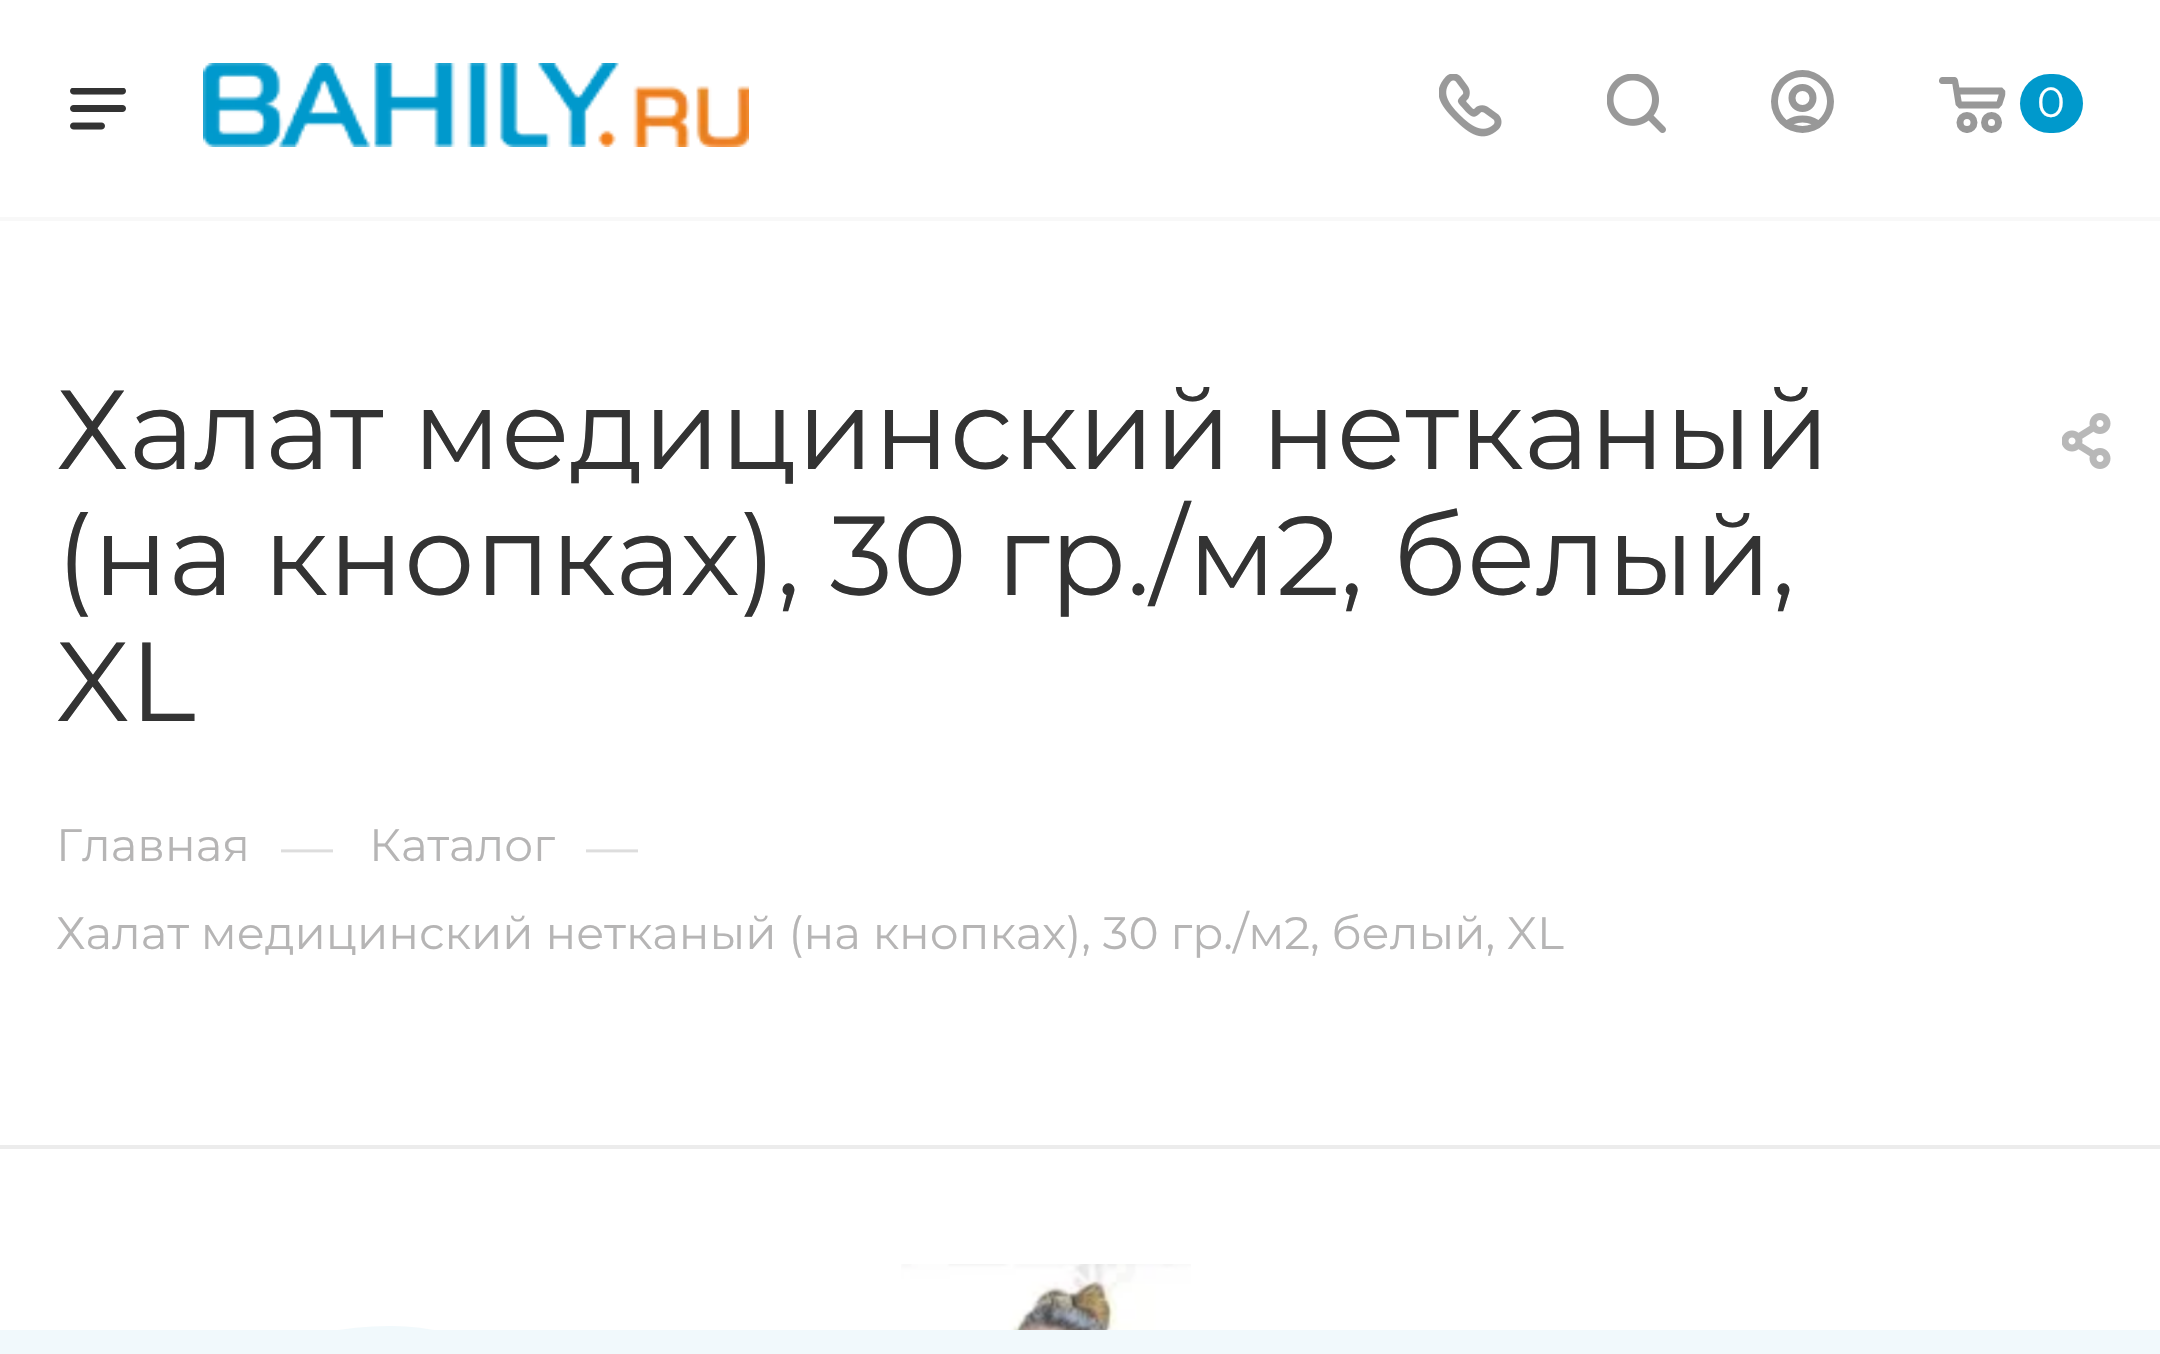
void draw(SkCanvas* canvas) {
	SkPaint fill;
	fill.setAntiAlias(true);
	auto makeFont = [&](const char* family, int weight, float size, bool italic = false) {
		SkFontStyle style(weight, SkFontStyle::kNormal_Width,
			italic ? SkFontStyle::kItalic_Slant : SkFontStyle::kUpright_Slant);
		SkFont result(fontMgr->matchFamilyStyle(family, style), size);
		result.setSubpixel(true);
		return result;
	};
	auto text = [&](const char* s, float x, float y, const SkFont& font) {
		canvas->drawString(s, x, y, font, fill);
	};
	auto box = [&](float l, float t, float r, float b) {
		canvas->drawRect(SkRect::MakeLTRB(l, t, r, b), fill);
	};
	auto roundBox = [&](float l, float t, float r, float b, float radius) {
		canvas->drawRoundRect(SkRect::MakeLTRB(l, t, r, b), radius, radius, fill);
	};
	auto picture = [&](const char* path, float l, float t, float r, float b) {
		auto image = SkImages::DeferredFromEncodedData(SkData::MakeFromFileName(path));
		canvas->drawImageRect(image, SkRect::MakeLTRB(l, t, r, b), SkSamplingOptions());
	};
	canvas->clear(0xFFFFFFFF);
	fill.setColor(0xFFF8F8F8);
	box(0, 217, 2160, 221);
	picture("image0.png", 70, 88, 126, 130);
	picture("image1.png", 203, 63, 749, 147);
	picture("image2.png", 1439, 74, 1502, 137);
	picture("image3.png", 1607, 74, 1666, 133);
	picture("image4.png", 1771, 70, 1834, 133);
	picture("image5.png", 1939, 77, 2006, 133);
	fill.setColor(0xFF0099CC);
	roundBox(2020, 74, 2083, 133, 29.5f);
	picture("image6.png", 2062, 413, 2111, 469);
	fill.setColor(0xFFECECEC);
	box(0, 1145, 2160, 1149);
	picture("image7.png", 901, 1264, 1191, 1330);
	fill.setColor(0xFFF1F9FC);
	box(0, 1330, 2160, 1354);
	canvas->drawPath(SkPathBuilder().moveTo(391, 1326).cubicTo(534, 1326, 651, 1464, 651, 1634).lineTo(651, 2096).lineTo(0, 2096).lineTo(0, 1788).cubicTo(0, 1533, 175, 1326, 391, 1326).close().detach(), fill);
	auto font1 = makeFont("Montserrat", 400, 42);
	fill.setColor(0xFFFFFFFF);
	text("0", 2037, 117, font1);
	auto font2 = makeFont("Montserrat", 400, 112);
	fill.setColor(0xFF333333);
	text("Халат медицинский нетканый", 56, 469, font2);
	text("(на кнопках), 30 гр./м2, белый,", 56, 595, font2);
	text("XL", 56, 721, font2);
	auto font3 = makeFont("Montserrat", 400, 45.5f);
	fill.setColor(0xFFB6B5B5);
	text("Главная", 56, 861, font3);
	auto font4 = makeFont("Montserrat", 400, 52);
	fill.setColor(0xFFDDDDDD);
	text("—", 281, 865, font4);
	fill.setColor(0xFFB6B5B5);
	text("Каталог", 369, 861, font3);
	fill.setColor(0xFFDDDDDD);
	text("—", 586, 865, font4);
	fill.setColor(0xFFB6B5B5);
	text("Халат медицинский нетканый (на кнопках), 30 гр./м2, белый, XL", 56, 949, font3);
}
